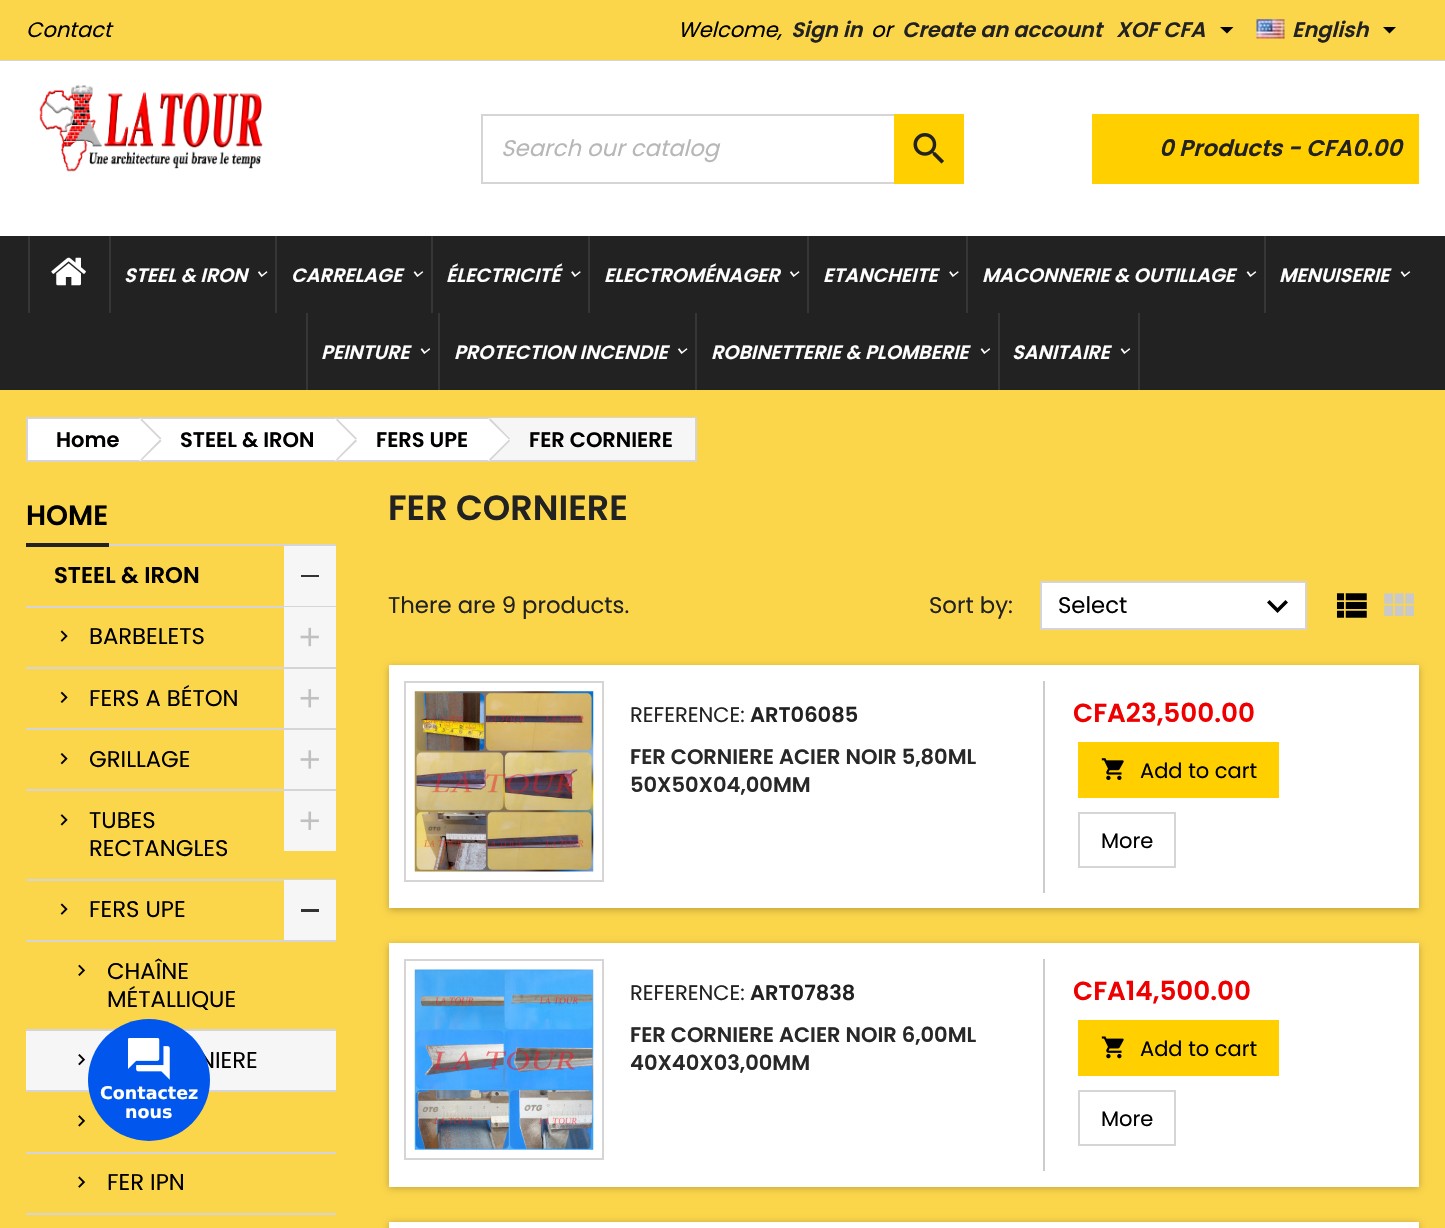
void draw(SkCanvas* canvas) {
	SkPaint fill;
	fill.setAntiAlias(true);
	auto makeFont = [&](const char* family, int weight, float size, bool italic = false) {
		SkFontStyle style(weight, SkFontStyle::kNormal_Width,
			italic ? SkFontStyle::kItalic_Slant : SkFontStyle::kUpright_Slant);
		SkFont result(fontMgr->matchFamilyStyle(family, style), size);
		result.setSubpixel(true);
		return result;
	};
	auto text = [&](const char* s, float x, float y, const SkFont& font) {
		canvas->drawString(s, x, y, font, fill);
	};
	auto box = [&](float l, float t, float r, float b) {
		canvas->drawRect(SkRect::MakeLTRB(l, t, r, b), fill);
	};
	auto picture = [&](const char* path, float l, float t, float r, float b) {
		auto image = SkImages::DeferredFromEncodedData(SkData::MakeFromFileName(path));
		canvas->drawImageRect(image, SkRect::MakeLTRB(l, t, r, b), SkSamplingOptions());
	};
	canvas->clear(0xFFFBD54A);
	fill.setColor(0xFFD6D4D4);
	box(0, 60, 1445, 61);
	fill.setColor(0xFF000000);
	canvas->drawPath(SkPathBuilder().moveTo(1220, 27).lineTo(1233.5f, 27).lineTo(1227, 33.5f).close().detach(), fill);
	picture("image0.png", 1256, 19, 1285, 39);
	canvas->drawPath(SkPathBuilder().moveTo(1383, 27).lineTo(1396, 27).lineTo(1389.5f, 33.5f).close().detach(), fill);
	fill.setColor(0xFFFFFFFF);
	box(0, 61, 1445, 236);
	picture("image1.png", 39, 84, 263, 172);
	fill.setStyle(SkPaint::kStroke_Style);
	fill.setStrokeWidth(2);
	fill.setColor(0xFFD6D4D4);
	canvas->drawRect(SkRect::MakeLTRB(482, 115, 963, 183), fill);
	fill.setStyle(SkPaint::kFill_Style);
	fill.setColor(0xFFFFCF00);
	box(894, 114, 964, 184);
	picture("image2.png", 913, 133, 944, 164);
	box(1092, 114, 1419, 184);
	fill.setColor(0xFF222222);
	box(0, 236, 1445, 390);
	fill.setColor(0xFF363636);
	box(28, 236, 30, 313);
	picture("image3.png", 51, 257, 86, 286);
	box(109, 236, 111, 313);
	picture("image4.png", 258, 271, 268, 277);
	box(275, 236, 277, 313);
	picture("image5.png", 413, 271, 424, 277);
	box(431, 236, 433, 313);
	picture("image6.png", 571, 271, 581, 277);
	box(588, 236, 590, 313);
	picture("image4.png", 790, 271, 800, 277);
	box(807, 236, 809, 313);
	picture("image6.png", 949, 271, 959, 277);
	box(966, 236, 968, 313);
	picture("image5.png", 1246, 271, 1257, 277);
	box(1264, 236, 1266, 313);
	picture("image5.png", 1400, 271, 1411, 277);
	box(306, 313, 308, 390);
	picture("image5.png", 420, 348, 431, 354);
	box(438, 313, 440, 390);
	picture("image4.png", 678, 348, 688, 354);
	box(695, 313, 697, 390);
	picture("image5.png", 980, 348, 991, 354);
	box(1138, 313, 1140, 390);
	box(998, 313, 1000, 390);
	picture("image5.png", 1120, 348, 1131, 354);
	fill.setColor(0xFFFFFFFF);
	box(28, 419, 488, 460);
	fill.setStyle(SkPaint::kStroke_Style);
	fill.setColor(0xFFD6D4D4);
	canvas->drawRect(SkRect::MakeLTRB(27, 418, 696, 461), fill);
	fill.setStyle(SkPaint::kFill_Style);
	fill.setColor(0xFFFFFFFF);
	canvas->drawPath(SkPathBuilder().moveTo(143, 420).lineTo(160, 437).cubicTo(162, 438, 162, 441, 160, 442).lineTo(143, 459).cubicTo(142, 461, 139, 461, 138, 459).lineTo(121, 442).cubicTo(119, 441, 119, 438, 121, 437).lineTo(138, 420).cubicTo(139, 418, 142, 418, 143, 420).close().detach(), fill);
	fill.setColor(0xFFD6D4D4);
	canvas->drawPath(SkPathBuilder().moveTo(141.5f, 418.5f).lineTo(161.5f, 438.5f).lineTo(160, 439.5f).lineTo(140.5f, 420).close().detach(), fill);
	canvas->drawPath(SkPathBuilder().moveTo(160, 439.5f).lineTo(161.5f, 441).lineTo(141.5f, 460.5f).lineTo(140.5f, 459.5f).close().detach(), fill);
	fill.setColor(0xFFFFFFFF);
	canvas->drawPath(SkPathBuilder().moveTo(338, 420).lineTo(356, 437).cubicTo(357, 438, 357, 441, 356, 442).lineTo(338, 459).cubicTo(337, 461, 335, 461, 333, 459).lineTo(316, 442).cubicTo(315, 441, 315, 438, 316, 437).lineTo(333, 420).cubicTo(335, 418, 337, 418, 338, 420).close().detach(), fill);
	fill.setColor(0xFFD6D4D4);
	canvas->drawPath(SkPathBuilder().moveTo(337, 418.5f).lineTo(357, 438.5f).lineTo(355.5f, 439.5f).lineTo(336, 420).close().detach(), fill);
	canvas->drawPath(SkPathBuilder().moveTo(355.5f, 439.5f).lineTo(357, 441).lineTo(337, 460.5f).lineTo(336, 459.5f).close().detach(), fill);
	fill.setColor(0xFFF6F6F6);
	box(490, 418, 695, 460);
	fill.setColor(0xFFFFFFFF);
	canvas->drawPath(SkPathBuilder().moveTo(492, 420).lineTo(509, 437).cubicTo(510, 438, 510, 441, 509, 442).lineTo(492, 459).cubicTo(490, 461, 488, 461, 487, 459).lineTo(469, 442).cubicTo(468, 441, 468, 438, 469, 437).lineTo(487, 420).cubicTo(488, 418, 490, 418, 492, 420).close().detach(), fill);
	fill.setColor(0xFFD6D4D4);
	canvas->drawPath(SkPathBuilder().moveTo(490.5f, 418.5f).lineTo(510, 438.5f).lineTo(509, 439.5f).lineTo(489, 420).close().detach(), fill);
	canvas->drawPath(SkPathBuilder().moveTo(509, 439.5f).lineTo(510, 441).lineTo(490.5f, 460.5f).lineTo(489, 459.5f).close().detach(), fill);
	box(109, 544, 336, 546);
	fill.setColor(0xFF222222);
	box(26, 543, 109, 547);
	fill.setColor(0xFFD6D4D4);
	box(26, 606, 336, 608);
	fill.setColor(0xFFF6F6F6);
	box(284, 546, 336, 606);
	fill.setColor(0xFF333333);
	box(301, 575, 319, 577);
	fill.setColor(0xFFD6D4D4);
	box(26, 667, 336, 669);
	picture("image7.png", 60, 630, 68, 642);
	fill.setColor(0xFFF6F6F6);
	box(284, 607, 336, 667);
	picture("image8.png", 300, 627, 319, 647);
	fill.setColor(0xFFD6D4D4);
	box(26, 728, 336, 730);
	picture("image9.png", 60, 691, 68, 703);
	fill.setColor(0xFFF6F6F6);
	box(284, 669, 336, 728);
	picture("image10.png", 300, 689, 319, 708);
	fill.setColor(0xFFD6D4D4);
	box(26, 789, 336, 791);
	picture("image11.png", 60, 753, 68, 765);
	fill.setColor(0xFFF6F6F6);
	box(284, 730, 336, 789);
	picture("image12.png", 300, 750, 319, 769);
	fill.setColor(0xFFD6D4D4);
	box(26, 879, 336, 881);
	picture("image13.png", 60, 814, 68, 826);
	fill.setColor(0xFFF6F6F6);
	box(284, 791, 336, 851);
	picture("image14.png", 300, 811, 319, 830);
	fill.setColor(0xFFD6D4D4);
	box(26, 940, 336, 942);
	picture("image7.png", 60, 903, 68, 915);
	fill.setColor(0xFFF6F6F6);
	box(284, 880, 336, 940);
	fill.setColor(0xFF333333);
	box(301, 909, 319, 912);
	fill.setColor(0xFFD6D4D4);
	box(26, 1029, 336, 1031);
	picture("image15.png", 78, 964, 86, 976);
	fill.setColor(0xFFF6F6F6);
	box(26, 1031, 336, 1090);
	fill.setColor(0xFFD6D4D4);
	box(26, 1090, 336, 1092);
	picture("image16.png", 78, 1054, 86, 1066);
	box(26, 1152, 336, 1154);
	picture("image17.png", 78, 1115, 86, 1127);
	box(26, 1213, 336, 1215);
	picture("image18.png", 78, 1176, 86, 1188);
	fill.setColor(0xFFFFFFFF);
	canvas->drawRect(SkRect::MakeLTRB(1041, 582, 1306, 629), fill);
	fill.setStyle(SkPaint::kStroke_Style);
	fill.setColor(0xFFD6D4D4);
	canvas->drawRect(SkRect::MakeLTRB(1041, 582, 1306, 629), fill);
	fill.setStyle(SkPaint::kFill_Style);
	fill.setColor(0xFF000000);
	canvas->drawPath(SkPathBuilder().moveTo(1269.5f, 600).lineTo(1277.5f, 608).lineTo(1285.5f, 600).lineTo(1288, 602.5f).lineTo(1277.5f, 613).lineTo(1267, 602.5f).close().detach(), fill);
	picture("image19.png", 1336, 593, 1367, 618);
	picture("image20.png", 1384, 593, 1414, 616);
	fill.setColor(0x3D000000);
	fill.setMaskFilter(SkMaskFilter::MakeBlur(kNormal_SkBlurStyle, 3.5f));
	canvas->drawRect(SkRect::MakeLTRB(389, 667, 1419, 910), fill);
	fill.setMaskFilter(nullptr);
	fill.setColor(0xFFFFFFFF);
	box(389, 665, 1419, 908);
	fill.setStyle(SkPaint::kStroke_Style);
	fill.setColor(0xFFD6D4D4);
	canvas->drawRect(SkRect::MakeLTRB(405, 682, 603, 881), fill);
	picture("image21.png", 414, 691, 594, 872);
	fill.setStyle(SkPaint::kFill_Style);
	fill.setColor(0xFFCCCCCC);
	box(1043, 681, 1045, 893);
	fill.setColor(0xFFFFCF00);
	box(1078, 742, 1279, 798);
	picture("image22.png", 1101, 758, 1124, 780);
	fill.setStyle(SkPaint::kStroke_Style);
	fill.setColor(0xFFD6D4D4);
	canvas->drawRect(SkRect::MakeLTRB(1079, 813, 1175, 867), fill);
	fill.setStyle(SkPaint::kFill_Style);
	fill.setColor(0x3D000000);
	fill.setMaskFilter(SkMaskFilter::MakeBlur(kNormal_SkBlurStyle, 3.5f));
	canvas->drawRect(SkRect::MakeLTRB(389, 945, 1419, 1188), fill);
	fill.setMaskFilter(nullptr);
	fill.setColor(0xFFFFFFFF);
	box(389, 943, 1419, 1187);
	fill.setStyle(SkPaint::kStroke_Style);
	fill.setColor(0xFFD6D4D4);
	canvas->drawRect(SkRect::MakeLTRB(405, 960, 603, 1159), fill);
	picture("image23.png", 414, 969, 594, 1150);
	fill.setStyle(SkPaint::kFill_Style);
	fill.setColor(0xFFCCCCCC);
	box(1043, 959, 1045, 1171);
	fill.setColor(0xFFFFCF00);
	box(1078, 1020, 1279, 1076);
	picture("image24.png", 1101, 1036, 1124, 1059);
	fill.setStyle(SkPaint::kStroke_Style);
	fill.setColor(0xFFD6D4D4);
	canvas->drawRect(SkRect::MakeLTRB(1079, 1091, 1175, 1145), fill);
	fill.setStyle(SkPaint::kFill_Style);
	fill.setColor(0x3D000000);
	fill.setMaskFilter(SkMaskFilter::MakeBlur(kNormal_SkBlurStyle, 3.5f));
	canvas->drawRect(SkRect::MakeLTRB(389, 1223, 1419, 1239), fill);
	fill.setMaskFilter(nullptr);
	fill.setColor(0xFFFFFFFF);
	box(389, 1222, 1419, 1228);
	auto font1 = makeFont("Poppins", 400, 21, true);
	fill.setColor(0xFF000000);
	text("Contact", 26, 37, font1);
	text("Welcome,", 678, 37, font1);
	auto font2 = makeFont("Poppins", 600, 21, true);
	fill.setColor(0xFF222222);
	text("Sign in", 791, 37, font2);
	fill.setColor(0xFF000000);
	text("or", 871, 37, font1);
	fill.setColor(0xFF222222);
	text("Create an account", 902, 37, font2);
	text("XOF CFA", 1116, 37, font2);
	text("English", 1292, 37, font2);
	auto font3 = makeFont("Poppins", 400, 22.75f, true);
	fill.setColor(0xFFB7B7B7);
	text("Search our catalog", 501, 156, font3);
	auto font4 = makeFont("Poppins", 600, 22.75f, true);
	fill.setColor(0xFF222222);
	text("0 Products - CFA0.00", 1159, 156, font4);
	auto font5 = makeFont("Poppins", 600, 19.25f, true);
	fill.setColor(0xFFFFFFFF);
	text("STEEL & IRON", 124, 282, font5);
	text("CARRELAGE", 291, 282, font5);
	text("ÉLECTRICITÉ", 446, 282, font5);
	text("ELECTROMÉNAGER", 604, 282, font5);
	text("ETANCHEITE", 823, 282, font5);
	text("MACONNERIE & OUTILLAGE", 982, 282, font5);
	text("MENUISERIE", 1279, 282, font5);
	text("PEINTURE", 321, 359, font5);
	text("PROTECTION INCENDIE", 454, 359, font5);
	text("ROBINETTERIE & PLOMBERIE", 711, 359, font5);
	text("SANITAIRE", 1012, 359, font5);
	auto font6 = makeFont("Poppins", 600, 21);
	fill.setColor(0xFF000000);
	text("Home", 56, 447, font6);
	text("STEEL & IRON", 180, 447, font6);
	text("FERS UPE", 376, 447, font6);
	text("FER CORNIERE", 529, 447, font6);
	auto font7 = makeFont("Poppins", 600, 28);
	text("HOME", 26, 525, font7);
	auto font8 = makeFont("Poppins", 600, 22.75f);
	text("STEEL & IRON", 54, 583, font8);
	auto font9 = makeFont("Poppins", 400, 22.75f);
	text("BARBELETS", 89, 644, font9);
	text("FERS A BÉTON", 89, 706, font9);
	text("GRILLAGE", 89, 767, font9);
	text("TUBES", 89, 828, font9);
	text("RECTANGLES", 89, 856, font9);
	text("FERS UPE", 89, 917, font9);
	text("CHAÎNE", 107, 979, font9);
	text("MÉTALLIQUE", 107, 1007, font9);
	text("NIERE", 199, 1068, font9);
	text("FER IPN", 107, 1190, font9);
	auto font10 = makeFont("Poppins", 600, 35);
	fill.setColor(0xFF222222);
	text("FER CORNIERE", 388, 520, font10);
	text("There are 9 products.", 388, 613, font9);
	text("Sort by:", 929, 613, font9);
	fill.setColor(0xFF000000);
	text("Select", 1058, 613, font9);
	auto font11 = makeFont("Poppins", 400, 21);
	fill.setColor(0xFF222222);
	text("REFERENCE:", 630, 722, font11);
	text("ART06085", 750, 722, font6);
	fill.setColor(0xFF282828);
	text("FER CORNIERE ACIER NOIR 5,80ML", 630, 764, font6);
	text("50X50X04,00MM", 630, 792, font6);
	auto font12 = makeFont("Poppins", 600, 26.25f);
	fill.setColor(0xFFEE0000);
	text("CFA23,500.00", 1073, 722, font12);
	fill.setColor(0xFF000000);
	text("Add to cart", 1140, 778, font11);
	text("More", 1101, 848, font11);
	fill.setColor(0xFF222222);
	text("REFERENCE:", 630, 1000, font11);
	text("ART07838", 750, 1000, font6);
	fill.setColor(0xFF282828);
	text("FER CORNIERE ACIER NOIR 6,00ML", 630, 1042, font6);
	text("40X40X03,00MM", 630, 1070, font6);
	fill.setColor(0xFFEE0000);
	text("CFA14,500.00", 1073, 1000, font12);
	fill.setColor(0xFF000000);
	text("Add to cart", 1140, 1056, font11);
	text("More", 1101, 1126, font11);
	fill.setColor(0xFF0056ED);
	canvas->drawCircle(149, 1080, 61, fill);
	picture("image25.png", 128, 1038, 170, 1080);
	auto font13 = makeFont("DejaVu Sans", 700, 17.5f);
	fill.setColor(0xFFFFFFFF);
	text("Contactez", 100, 1099, font13);
	text("nous", 125, 1118, font13);
}
